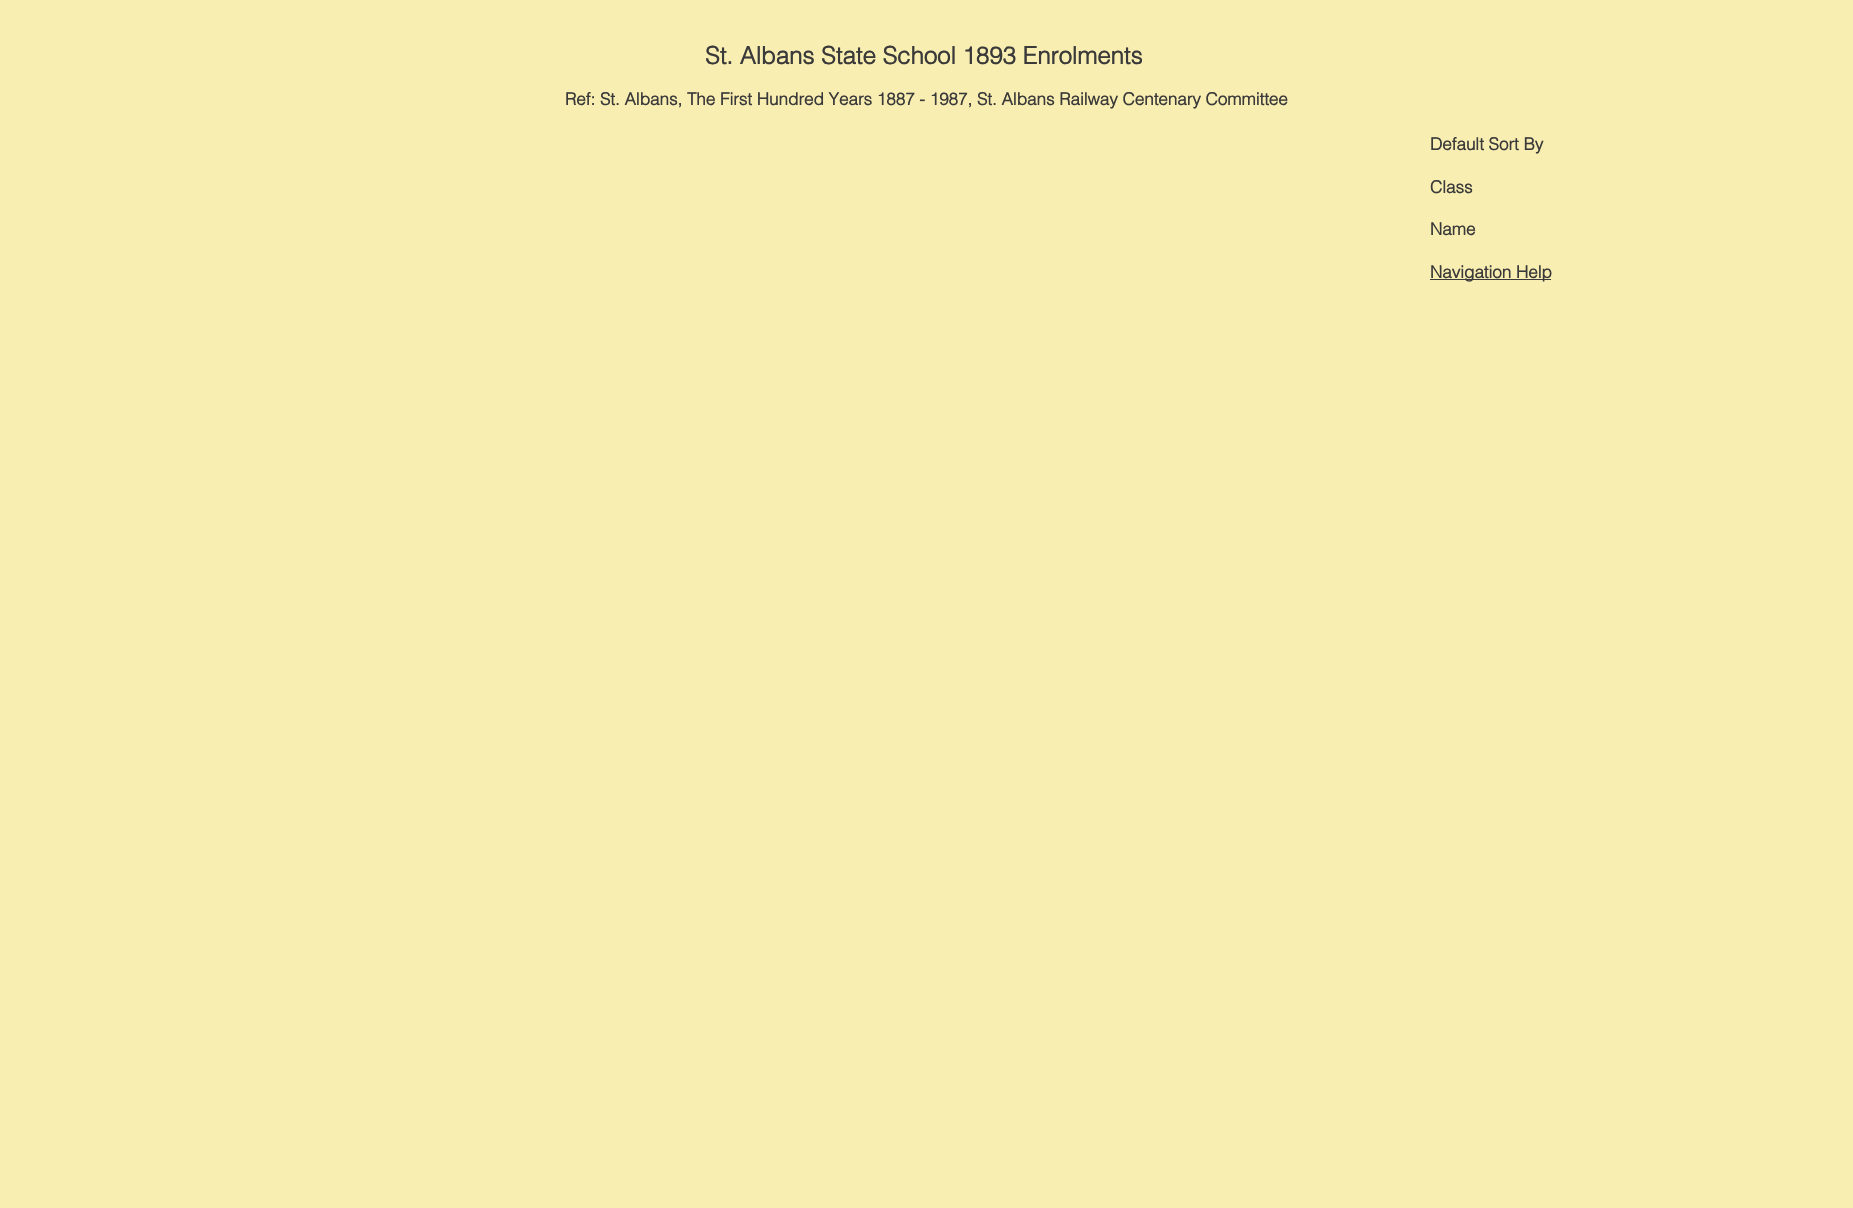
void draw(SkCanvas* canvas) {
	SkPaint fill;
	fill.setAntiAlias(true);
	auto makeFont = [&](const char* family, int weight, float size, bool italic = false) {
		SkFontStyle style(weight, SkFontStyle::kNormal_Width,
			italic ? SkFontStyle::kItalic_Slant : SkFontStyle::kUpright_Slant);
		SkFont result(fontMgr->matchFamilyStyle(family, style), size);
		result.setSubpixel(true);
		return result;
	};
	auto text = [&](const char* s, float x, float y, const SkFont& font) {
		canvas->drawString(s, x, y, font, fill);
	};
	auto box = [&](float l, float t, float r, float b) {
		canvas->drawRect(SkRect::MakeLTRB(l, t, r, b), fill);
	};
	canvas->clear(0xFFF9EEB1);
	fill.setColor(0xFF3B3A3A);
	box(1430, 279, 1551, 280);
	auto font1 = makeFont("helvetica", 700, 24);
	text("St. Albans State School 1893 Enrolments", 705, 64, font1);
	auto font2 = makeFont("helvetica", 700, 17);
	text("Ref: St. Albans, The First Hundred Years 1887 - 1987, St. Albans Railway Centenary Committee", 565, 105, font2);
	text("Default Sort By", 1430, 150, font2);
	text("Class", 1430, 193, font2);
	text("Name", 1430, 235, font2);
	text("Navigation Help", 1430, 278, font2);
}
